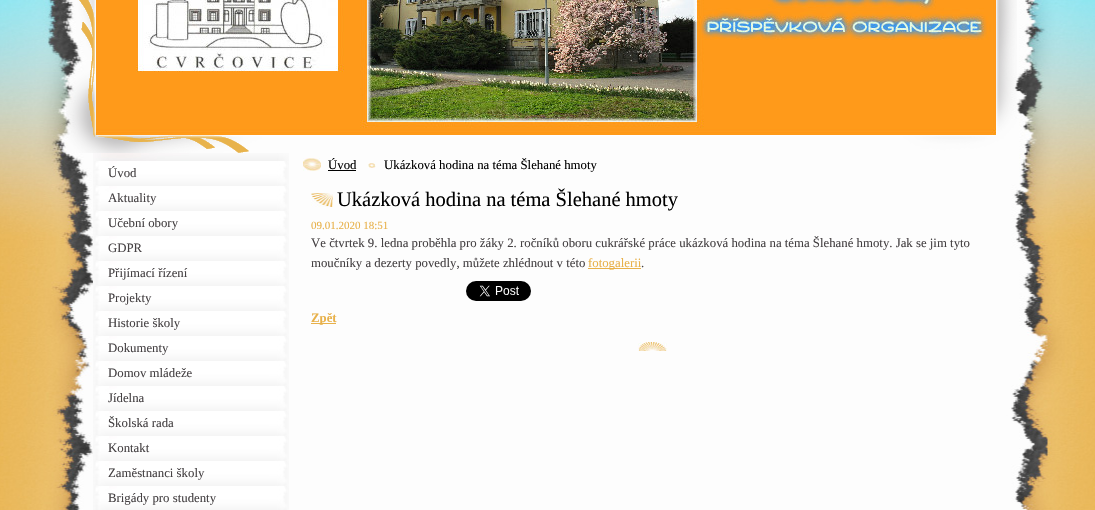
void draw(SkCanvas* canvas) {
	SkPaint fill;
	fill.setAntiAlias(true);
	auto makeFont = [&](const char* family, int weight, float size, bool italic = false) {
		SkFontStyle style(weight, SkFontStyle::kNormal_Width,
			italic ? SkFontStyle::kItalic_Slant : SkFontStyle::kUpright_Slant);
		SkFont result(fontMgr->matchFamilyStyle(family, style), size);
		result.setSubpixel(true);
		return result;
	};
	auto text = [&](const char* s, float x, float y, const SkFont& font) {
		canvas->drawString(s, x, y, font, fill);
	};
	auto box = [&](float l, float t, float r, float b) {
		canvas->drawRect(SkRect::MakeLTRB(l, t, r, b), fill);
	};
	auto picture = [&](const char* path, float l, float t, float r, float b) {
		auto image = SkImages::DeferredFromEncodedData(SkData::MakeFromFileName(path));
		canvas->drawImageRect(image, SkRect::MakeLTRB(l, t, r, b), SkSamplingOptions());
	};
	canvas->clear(0xFFFFFFFF);
	picture("image0.png", 0, 0, 1095, 510);
	picture("image1.png", 66, 0, 1017, 153);
	picture("image2.png", 96, 0, 996, 135);
	picture("image3.png", 93, 153, 289, 161);
	picture("image4.png", 93, 161, 289, 186);
	picture("image4.png", 93, 186, 289, 211);
	picture("image4.png", 93, 211, 289, 236);
	picture("image4.png", 93, 236, 289, 261);
	picture("image4.png", 93, 261, 289, 286);
	picture("image4.png", 93, 286, 289, 311);
	picture("image4.png", 93, 311, 289, 336);
	picture("image4.png", 93, 336, 289, 361);
	picture("image4.png", 93, 361, 289, 386);
	picture("image4.png", 93, 386, 289, 411);
	picture("image4.png", 93, 411, 289, 436);
	picture("image4.png", 93, 436, 289, 461);
	picture("image4.png", 93, 461, 289, 486);
	picture("image5.png", 93, 486, 289, 510);
	picture("image6.png", 303, 158, 321, 171);
	fill.setColor(0xFF000000);
	box(328, 170, 356, 171);
	picture("image7.png", 368, 163, 376, 168);
	picture("image8.png", 638, 342, 667, 351);
	picture("image9.png", 311, 193, 333, 207);
	fill.setColor(0xFFE8B14A);
	box(588, 268, 641, 269);
	picture("image10.png", 466, 281, 531, 301);
	box(311, 323, 336, 324);
	auto font1 = makeFont("Liberation Serif", 400, 12.8f);
	fill.setColor(0xFF454143);
	text("Úvod", 108, 177, font1);
	text("Aktuality", 108, 202, font1);
	text("Učební obory", 108, 227, font1);
	text("GDPR", 108, 252, font1);
	text("Přijímací řízení", 108, 277, font1);
	text("Projekty", 108, 302, font1);
	text("Historie školy", 108, 327, font1);
	text("Dokumenty", 108, 352, font1);
	text("Domov mládeže", 108, 377, font1);
	text("Jídelna", 108, 402, font1);
	text("Školská rada", 108, 427, font1);
	text("Kontakt", 108, 452, font1);
	text("Zaměstnanci školy", 108, 477, font1);
	text("Brigády pro studenty", 108, 502, font1);
	fill.setColor(0xFF000000);
	text("Úvod", 328, 169, font1);
	text("Ukázková hodina na téma Šlehané hmoty", 384, 169, font1);
	auto font2 = makeFont("Liberation Serif", 400, 20.5f);
	text("Ukázková hodina na téma Šlehané hmoty", 337, 206, font2);
	auto font3 = makeFont("Liberation Serif", 400, 11);
	fill.setColor(0xFFE8B14A);
	text("09.01.2020 18:51", 311, 229, font3);
	fill.setColor(0xFF454143);
	text("Ve čtvrtek 9. ledna proběhla pro žáky 2. ročníků oboru cukrářské práce ukázková hodina na téma Šlehané hmoty. Jak se jim tyto", 311, 247, font1);
	text("moučníky a dezerty povedly, můžete zhlédnout v této", 311, 267, font1);
	fill.setColor(0xFFE8B14A);
	text("fotogalerii", 588, 267, font1);
	fill.setColor(0xFF454143);
	text(".", 641, 267, font1);
	auto font4 = makeFont("Liberation Serif", 700, 12.8f);
	fill.setColor(0xFFE8B14A);
	text("Zpět", 311, 322, font4);
}
